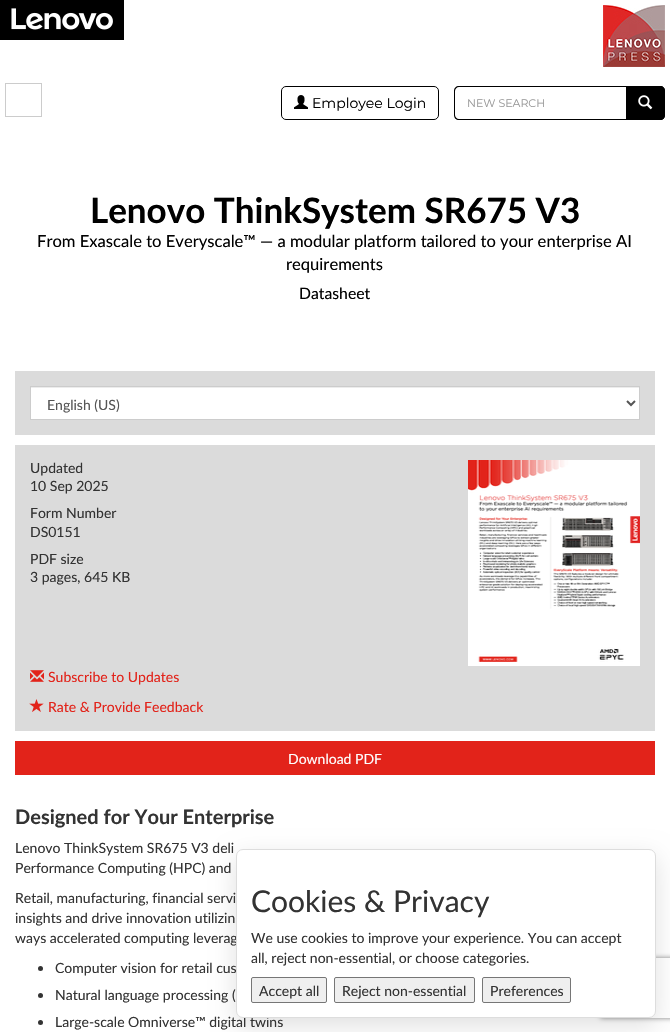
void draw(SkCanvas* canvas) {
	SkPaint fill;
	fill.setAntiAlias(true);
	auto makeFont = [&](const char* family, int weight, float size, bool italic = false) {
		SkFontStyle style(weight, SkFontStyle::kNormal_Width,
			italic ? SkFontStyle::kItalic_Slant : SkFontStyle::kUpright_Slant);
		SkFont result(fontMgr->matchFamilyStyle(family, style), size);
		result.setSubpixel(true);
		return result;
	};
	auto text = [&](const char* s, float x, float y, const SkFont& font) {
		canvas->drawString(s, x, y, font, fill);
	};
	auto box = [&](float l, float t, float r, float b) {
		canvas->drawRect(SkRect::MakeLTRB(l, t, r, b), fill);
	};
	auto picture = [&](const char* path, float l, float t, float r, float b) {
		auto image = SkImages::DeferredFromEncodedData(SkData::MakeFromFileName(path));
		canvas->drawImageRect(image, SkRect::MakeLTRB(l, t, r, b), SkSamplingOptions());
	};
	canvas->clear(0xFFFFFFFF);
	picture("image0.png", 0, 0, 124, 40);
	picture("image1.png", 603, 5, 665, 67);
	fill.setStyle(SkPaint::kStroke_Style);
	fill.setStrokeWidth(1);
	fill.setColor(0xFFCCCCCC);
	canvas->drawRect(SkRect::MakeLTRB(5.5f, 83.5f, 41.5f, 116.5f), fill);
	fill.setColor(0xFF000000);
	canvas->drawRoundRect(SkRect::MakeLTRB(281.5f, 86.5f, 438.5f, 119.5f), 4.5f, 4.5f, fill);
	picture("image2.png", 294, 95, 308, 109);
	fill.setStyle(SkPaint::kFill_Style);
	canvas->drawPath(SkPathBuilder(SkPathFillType::kEvenOdd).moveTo(459, 86).lineTo(627, 86).lineTo(627, 120).lineTo(459, 120).cubicTo(456, 120, 454, 118, 454, 115).lineTo(454, 91).cubicTo(454, 88, 456, 86, 459, 86).close().moveTo(459, 87).lineTo(627, 87).lineTo(627, 119).lineTo(459, 119).cubicTo(457, 119, 455, 117, 455, 115).lineTo(455, 91).cubicTo(455, 89, 457, 87, 459, 87).close().detach(), fill);
	canvas->drawPath(SkPathBuilder().moveTo(626, 86).lineTo(660, 86).cubicTo(663, 86, 665, 88, 665, 91).lineTo(665, 115).cubicTo(665, 118, 663, 120, 660, 120).lineTo(626, 120).close().detach(), fill);
	canvas->drawPath(SkPathBuilder(SkPathFillType::kEvenOdd).moveTo(626, 86).lineTo(660, 86).cubicTo(663, 86, 665, 88, 665, 91).lineTo(665, 115).cubicTo(665, 118, 663, 120, 660, 120).lineTo(626, 120).close().moveTo(626, 87).lineTo(660, 87).cubicTo(662, 87, 664, 89, 664, 91).lineTo(664, 115).cubicTo(664, 117, 662, 119, 660, 119).lineTo(626, 119).close().detach(), fill);
	picture("image3.png", 638, 95, 653, 110);
	fill.setColor(0xFFDBDBDB);
	box(15, 371, 655, 435);
	fill.setColor(0xFFFFFFFF);
	box(31, 388, 639, 419);
	fill.setColor(0xFFECECEC);
	box(31, 387, 639, 388);
	fill.setStyle(SkPaint::kStroke_Style);
	fill.setColor(0xFFCCCCCC);
	canvas->drawRect(SkRect::MakeLTRB(30.5f, 386.5f, 639.5f, 419.5f), fill);
	fill.setStrokeWidth(2);
	fill.setColor(0xFF555555);
	canvas->drawPath(SkPathBuilder().moveTo(627, 401).lineTo(631, 405).lineTo(635, 401).detach(), fill);
	fill.setStyle(SkPaint::kFill_Style);
	fill.setColor(0xFFDBDBDB);
	box(15, 445, 655, 731);
	fill.setColor(0xFFFFFFFF);
	box(468, 460, 640, 666);
	picture("image4.png", 468, 460, 640, 662);
	picture("image5.png", 30, 670, 44, 682);
	picture("image6.png", 29, 699, 44, 712);
	fill.setColor(0xFFE2231A);
	box(15, 741, 655, 775);
	fill.setColor(0xFF333333);
	canvas->drawCircle(40.5f, 968.5f, 2.5f, fill);
	canvas->drawCircle(40.5f, 995.5f, 2.5f, fill);
	canvas->drawCircle(40.5f, 1022.5f, 2.5f, fill);
	fill.setColor(0x1F000000);
	fill.setMaskFilter(SkMaskFilter::MakeBlur(kNormal_SkBlurStyle, 12));
	canvas->drawRoundRect(SkRect::MakeLTRB(236, 857, 656, 1026), 7, 7, fill);
	fill.setMaskFilter(nullptr);
	canvas->save();
	canvas->clipPath(SkPathBuilder(SkPathFillType::kEvenOdd).moveTo(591, 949).lineTo(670, 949).lineTo(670, 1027).lineTo(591, 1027).close().moveTo(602, 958).lineTo(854, 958).cubicTo(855, 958, 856, 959, 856, 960).lineTo(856, 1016).cubicTo(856, 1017, 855, 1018, 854, 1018).lineTo(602, 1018).cubicTo(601, 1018, 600, 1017, 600, 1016).lineTo(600, 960).cubicTo(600, 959, 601, 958, 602, 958).close().detach(), true);
	fill.setColor(0xFF808080);
	fill.setMaskFilter(SkMaskFilter::MakeBlur(kNormal_SkBlurStyle, 2.5f));
	canvas->drawRoundRect(SkRect::MakeLTRB(600, 958, 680, 1018), 2, 2, fill);
	fill.setMaskFilter(nullptr);
	canvas->restore();
	auto font1 = makeFont("Montserrat", 400, 14);
	fill.setColor(0xFF000000);
	text("Employee Login", 312, 108, font1);
	auto font2 = makeFont("Montserrat", 400, 11);
	fill.setColor(0xFF999999);
	text("NEW SEARCH", 467, 107, font2);
	auto font3 = makeFont("Lato", 700, 35);
	fill.setColor(0xFF000000);
	text("Lenovo ThinkSystem SR675 V3", 90, 223, font3);
	auto font4 = makeFont("Lato", 400, 16.6f);
	text("From Exascale to Everyscale™ — a modular platform tailored to your enterprise AI", 37, 247, font4);
	text("requirements", 286, 270, font4);
	auto font5 = makeFont("Lato", 400, 15.75f);
	text("Datasheet", 299, 299, font5);
	auto font6 = makeFont("Lato", 400, 14);
	fill.setColor(0xFF555555);
	text("English (US)", 47, 410, font6);
	fill.setColor(0xFF333333);
	text("Updated", 30, 473, font6);
	text("10 Sep 2025", 30, 491, font6);
	text("Form Number", 30, 518, font6);
	text("DS0151", 30, 537, font6);
	text("PDF size", 30, 564, font6);
	text("3 pages, 645 KB", 30, 582, font6);
	fill.setColor(0xFFE2231A);
	text("Subscribe to Updates", 48, 682, font6);
	text("Rate & Provide Feedback", 48, 712, font6);
	fill.setColor(0xFFFFFFFF);
	text("Download PDF", 288, 764, font6);
	auto font7 = makeFont("Lato", 700, 20);
	fill.setColor(0xFF333333);
	text("Designed for Your Enterprise", 15, 824, font7);
	text("Lenovo ThinkSystem SR675 V3 deli", 15, 853, font6);
	text("Performance Computing (HPC) and", 15, 873, font6);
	text("Retail, manufacturing, financial servi", 15, 903, font6);
	text("insights and drive innovation utilizin", 15, 923, font6);
	text("ways accelerated computing leverag", 15, 943, font6);
	text("Computer vision for retail cus", 55, 973, font6);
	text("Natural language processing (", 55, 1000, font6);
	text("Large-scale Omniverse™ digital twins", 55, 1027, font6);
	fill.setColor(0xFFFFFFFF);
	canvas->drawRoundRect(SkRect::MakeLTRB(236.5f, 849.5f, 655.5f, 1017.5f), 6.5f, 6.5f, fill);
	fill.setStyle(SkPaint::kStroke_Style);
	fill.setStrokeWidth(1);
	fill.setColor(0xFFDDDDDD);
	canvas->drawRoundRect(SkRect::MakeLTRB(236.5f, 849.5f, 655.5f, 1017.5f), 6.5f, 6.5f, fill);
	auto font8 = makeFont("Lato", 400, 30);
	fill.setStyle(SkPaint::kFill_Style);
	fill.setColor(0xFF333333);
	text("Cookies & Privacy", 251, 912, font8);
	text("We use cookies to improve your experience. You can accept", 251, 943, font6);
	text("all, reject non-essential, or choose categories.", 251, 963, font6);
	fill.setColor(0xFFEFEFEF);
	canvas->drawRoundRect(SkRect::MakeLTRB(251.5f, 977.5f, 326.5f, 1002.5f), 1.5f, 1.5f, fill);
	fill.setStyle(SkPaint::kStroke_Style);
	fill.setColor(0xFF767676);
	canvas->drawRoundRect(SkRect::MakeLTRB(251.5f, 977.5f, 326.5f, 1002.5f), 1.5f, 1.5f, fill);
	fill.setStyle(SkPaint::kFill_Style);
	fill.setColor(0xFF333333);
	text("Accept all", 259, 996, font6);
	fill.setColor(0xFFEFEFEF);
	canvas->drawRoundRect(SkRect::MakeLTRB(334.5f, 977.5f, 474.5f, 1002.5f), 1.5f, 1.5f, fill);
	fill.setStyle(SkPaint::kStroke_Style);
	fill.setColor(0xFF767676);
	canvas->drawRoundRect(SkRect::MakeLTRB(334.5f, 977.5f, 474.5f, 1002.5f), 1.5f, 1.5f, fill);
	fill.setStyle(SkPaint::kFill_Style);
	fill.setColor(0xFF333333);
	text("Reject non-essential", 342, 996, font6);
	fill.setColor(0xFFEFEFEF);
	canvas->drawRoundRect(SkRect::MakeLTRB(482.5f, 977.5f, 570.5f, 1002.5f), 1.5f, 1.5f, fill);
	fill.setStyle(SkPaint::kStroke_Style);
	fill.setColor(0xFF767676);
	canvas->drawRoundRect(SkRect::MakeLTRB(482.5f, 977.5f, 570.5f, 1002.5f), 1.5f, 1.5f, fill);
	fill.setStyle(SkPaint::kFill_Style);
	fill.setColor(0xFF333333);
	text("Preferences", 490, 996, font6);
}
